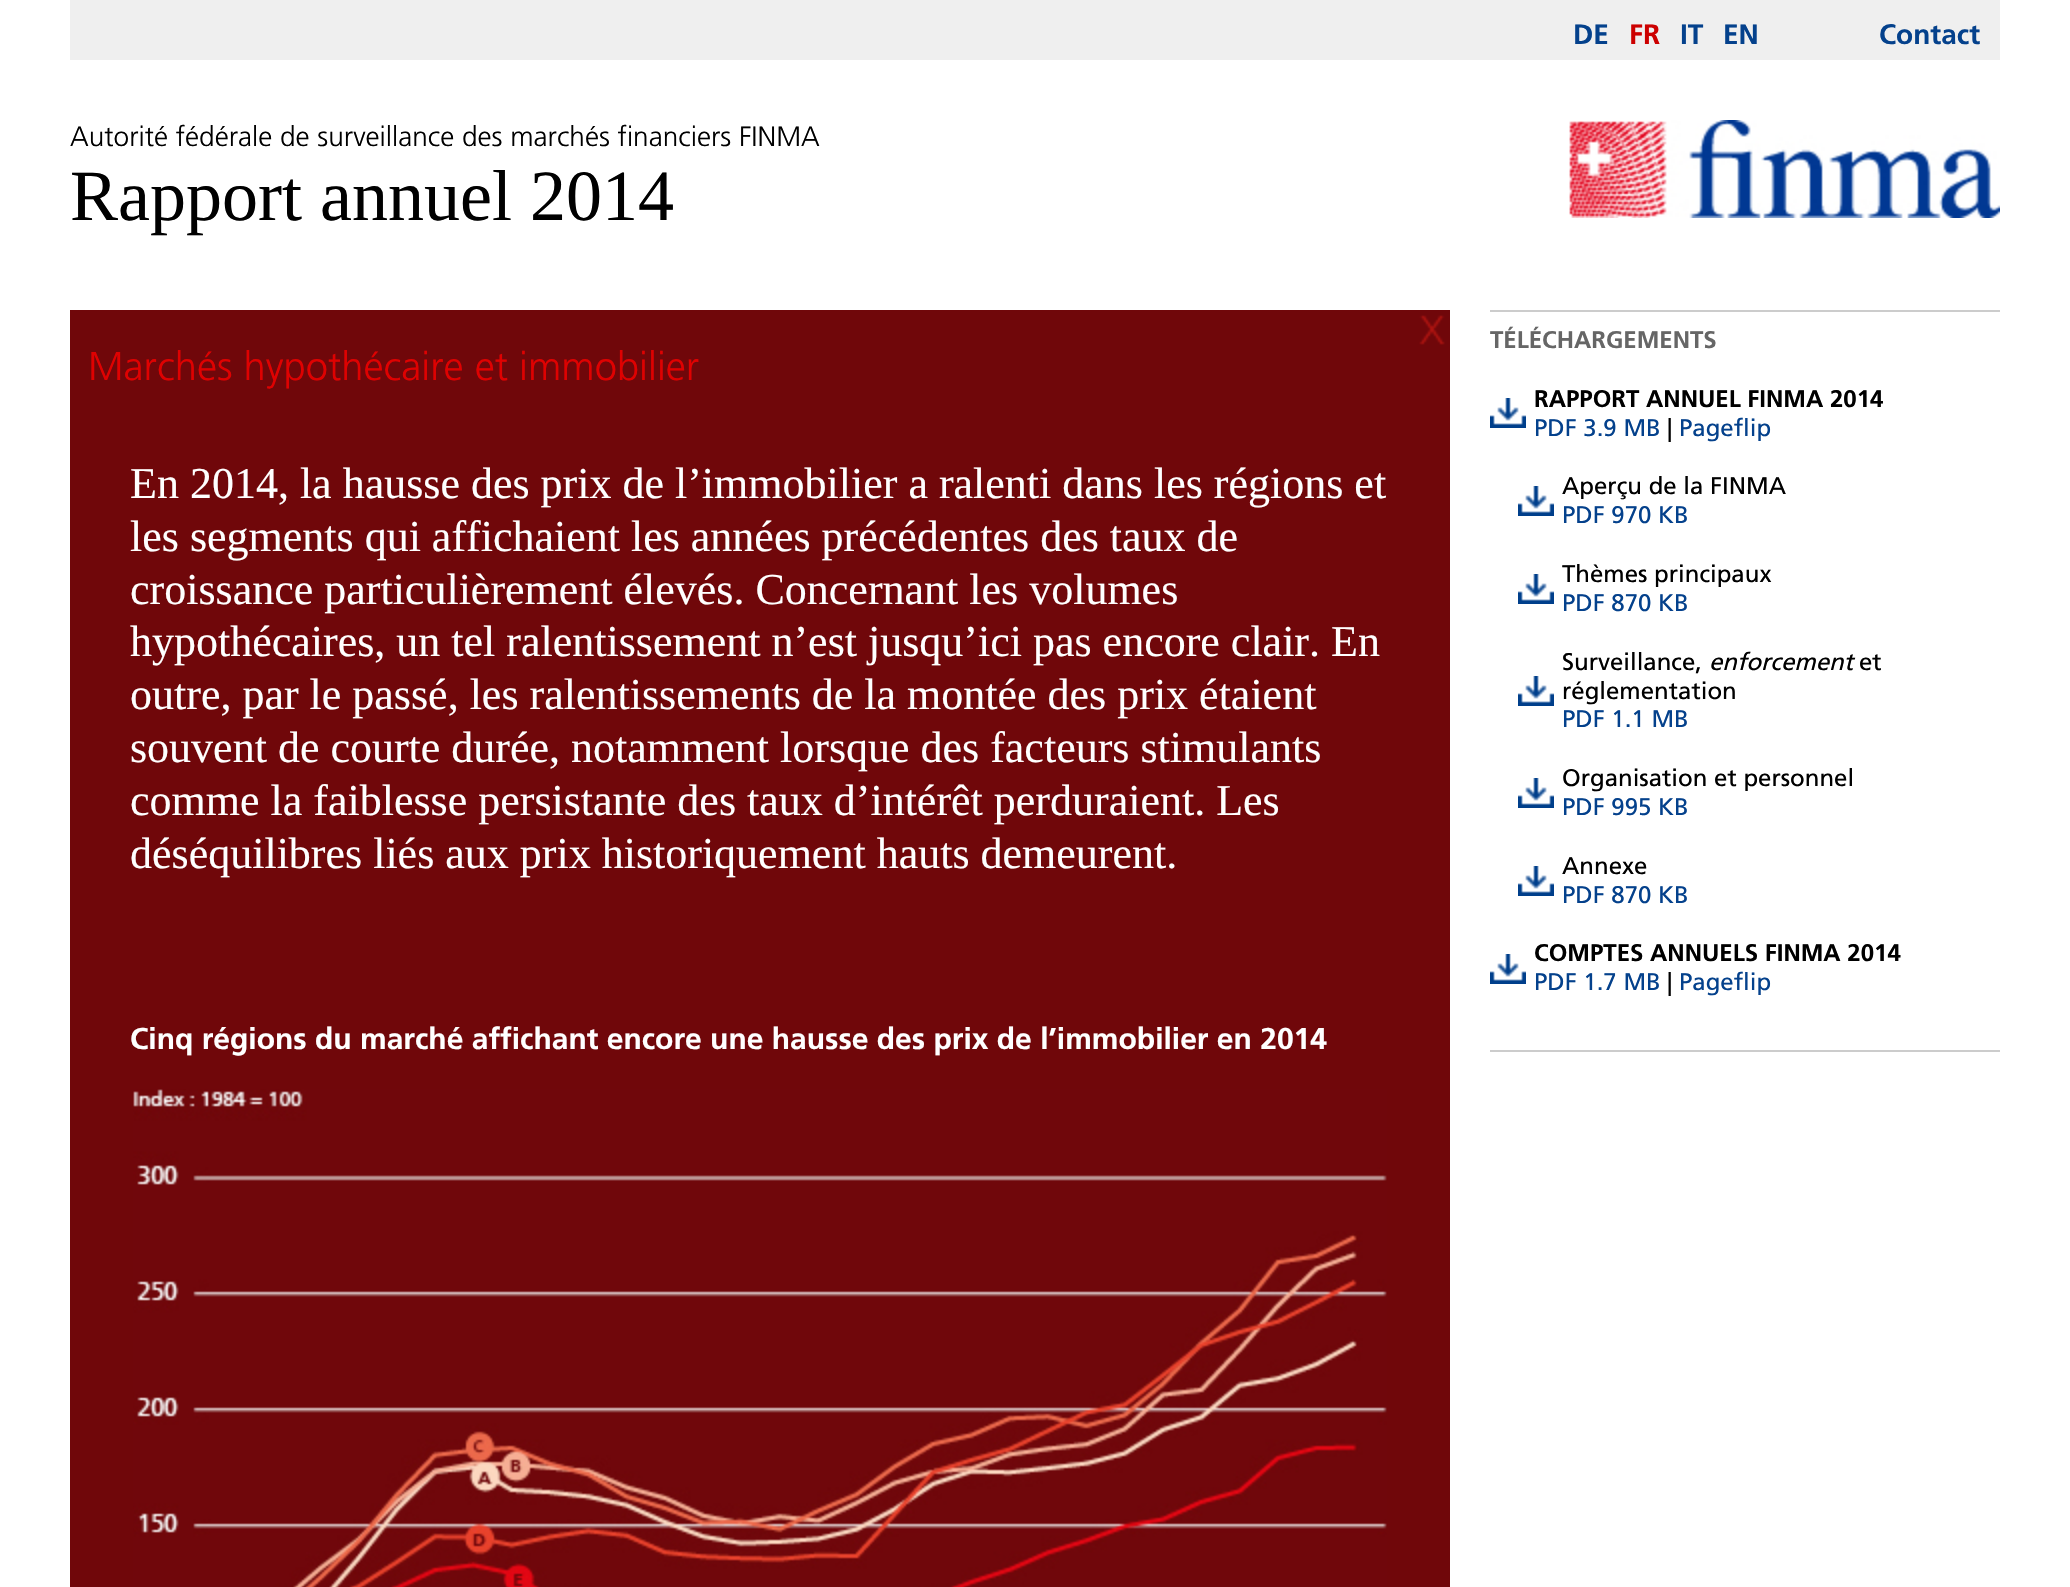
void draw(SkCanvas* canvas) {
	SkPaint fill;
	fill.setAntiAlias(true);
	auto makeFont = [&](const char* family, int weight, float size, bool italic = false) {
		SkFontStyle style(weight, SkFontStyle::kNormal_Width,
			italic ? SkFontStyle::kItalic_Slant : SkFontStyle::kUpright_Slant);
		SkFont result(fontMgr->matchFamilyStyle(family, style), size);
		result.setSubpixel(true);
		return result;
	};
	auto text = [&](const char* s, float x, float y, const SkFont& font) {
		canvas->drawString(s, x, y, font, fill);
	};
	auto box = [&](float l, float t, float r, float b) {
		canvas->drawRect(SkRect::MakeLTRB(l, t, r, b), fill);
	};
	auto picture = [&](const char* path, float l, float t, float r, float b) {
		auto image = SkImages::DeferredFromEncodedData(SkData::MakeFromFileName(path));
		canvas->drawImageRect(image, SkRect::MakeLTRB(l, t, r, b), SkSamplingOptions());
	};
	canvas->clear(0xFFFFFFFF);
	fill.setColor(0xFFEFEFEF);
	box(70, 0, 2000, 60);
	picture("image0.png", 1569, 120, 2000, 218);
	fill.setColor(0xFF70070A);
	box(70, 310, 1450, 1587);
	picture("image1.png", 1419, 315, 1445, 345);
	picture("image2.png", 133, 1089, 1387, 1587);
	fill.setColor(0xFFCCCCCC);
	box(1490, 310, 2000, 312);
	picture("image3.png", 1490, 398, 1526, 428);
	picture("image3.png", 1518, 486, 1554, 516);
	picture("image3.png", 1518, 574, 1554, 604);
	picture("image3.png", 1518, 676, 1554, 706);
	picture("image3.png", 1518, 778, 1554, 808);
	picture("image3.png", 1518, 866, 1554, 896);
	picture("image3.png", 1490, 954, 1526, 984);
	box(1490, 1050, 2000, 1052);
	auto font1 = makeFont("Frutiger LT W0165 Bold", 700, 28);
	fill.setColor(0xFF04418C);
	text("DE", 1573, 44, font1);
	fill.setColor(0xFFCC0000);
	text("FR", 1629, 44, font1);
	fill.setColor(0xFF04418C);
	text("IT", 1680, 44, font1);
	text("EN", 1723, 44, font1);
	text("Contact", 1879, 44, font1);
	auto font2 = makeFont("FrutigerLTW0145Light", 300, 28);
	fill.setColor(0xFF000000);
	text("Autorité fédérale de surveillance des marchés financiers FINMA", 70, 146, font2);
	auto font3 = makeFont("Liberation Serif", 400, 72);
	text("Rapport annuel 2014", 70, 220, font3);
	auto font4 = makeFont("FrutigerLTW0145Light", 300, 40);
	fill.setColor(0xFFDF0101);
	text("Marchés hypothécaire et immobilier", 88, 380, font4);
	auto font5 = makeFont("Liberation Serif", 400, 44);
	fill.setColor(0xFFFFFFFF);
	text("En 2014, la hausse des prix de l’immobilier a ralenti dans les régions et", 130, 498, font5);
	text("les segments qui affichaient les années précédentes des taux de", 130, 551, font5);
	text("croissance particulièrement élevés. Concernant les volumes", 130, 604, font5);
	text("hypothécaires, un tel ralentissement n’est jusqu’ici pas encore clair. En", 130, 656, font5);
	text("outre, par le passé, les ralentissements de la montée des prix étaient", 130, 709, font5);
	text("souvent de courte durée, notamment lorsque des facteurs stimulants", 130, 762, font5);
	text("comme la faiblesse persistante des taux d’intérêt perduraient. Les", 130, 815, font5);
	text("déséquilibres liés aux prix historiquement hauts demeurent.", 130, 868, font5);
	auto font6 = makeFont("Frutiger LT W0165 Bold", 700, 30);
	text("Cinq régions du marché affichant encore une hausse des prix de l’immobilier en 2014", 130, 1049, font6);
	auto font7 = makeFont("Frutiger LT W0165 Bold", 700, 24);
	fill.setColor(0xFF666666);
	text("TÉLÉCHARGEMENTS", 1490, 348, font7);
	fill.setColor(0xFF000000);
	text("RAPPORT ANNUEL FINMA 2014", 1534, 407, font7);
	auto font8 = makeFont("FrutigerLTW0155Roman", 400, 24);
	fill.setColor(0xFF04418C);
	text("PDF 3.9 MB", 1534, 436, font8);
	fill.setColor(0xFF000000);
	text("|", 1667, 436, font8);
	fill.setColor(0xFF04418C);
	text("Pageflip", 1679, 436, font8);
	fill.setColor(0xFF000000);
	text("Aperçu de la FINMA", 1562, 494, font8);
	fill.setColor(0xFF04418C);
	text("PDF 970 KB", 1562, 523, font8);
	fill.setColor(0xFF000000);
	text("Thèmes principaux", 1562, 582, font8);
	fill.setColor(0xFF04418C);
	text("PDF 870 KB", 1562, 611, font8);
	fill.setColor(0xFF000000);
	text("Surveillance,", 1562, 670, font8);
	auto font9 = makeFont("FrutigerLTW0155Roman", 400, 24, true);
	text("enforcement", 1709, 670, font9);
	text("et", 1859, 670, font8);
	text("réglementation", 1562, 699, font8);
	fill.setColor(0xFF04418C);
	text("PDF 1.1 MB", 1562, 727, font8);
	fill.setColor(0xFF000000);
	text("Organisation et personnel", 1562, 786, font8);
	fill.setColor(0xFF04418C);
	text("PDF 995 KB", 1562, 815, font8);
	fill.setColor(0xFF000000);
	text("Annexe", 1562, 874, font8);
	fill.setColor(0xFF04418C);
	text("PDF 870 KB", 1562, 903, font8);
	fill.setColor(0xFF000000);
	text("COMPTES ANNUELS FINMA 2014", 1534, 961, font7);
	fill.setColor(0xFF04418C);
	text("PDF 1.7 MB", 1534, 990, font8);
	fill.setColor(0xFF000000);
	text("|", 1667, 990, font8);
	fill.setColor(0xFF04418C);
	text("Pageflip", 1679, 990, font8);
}
